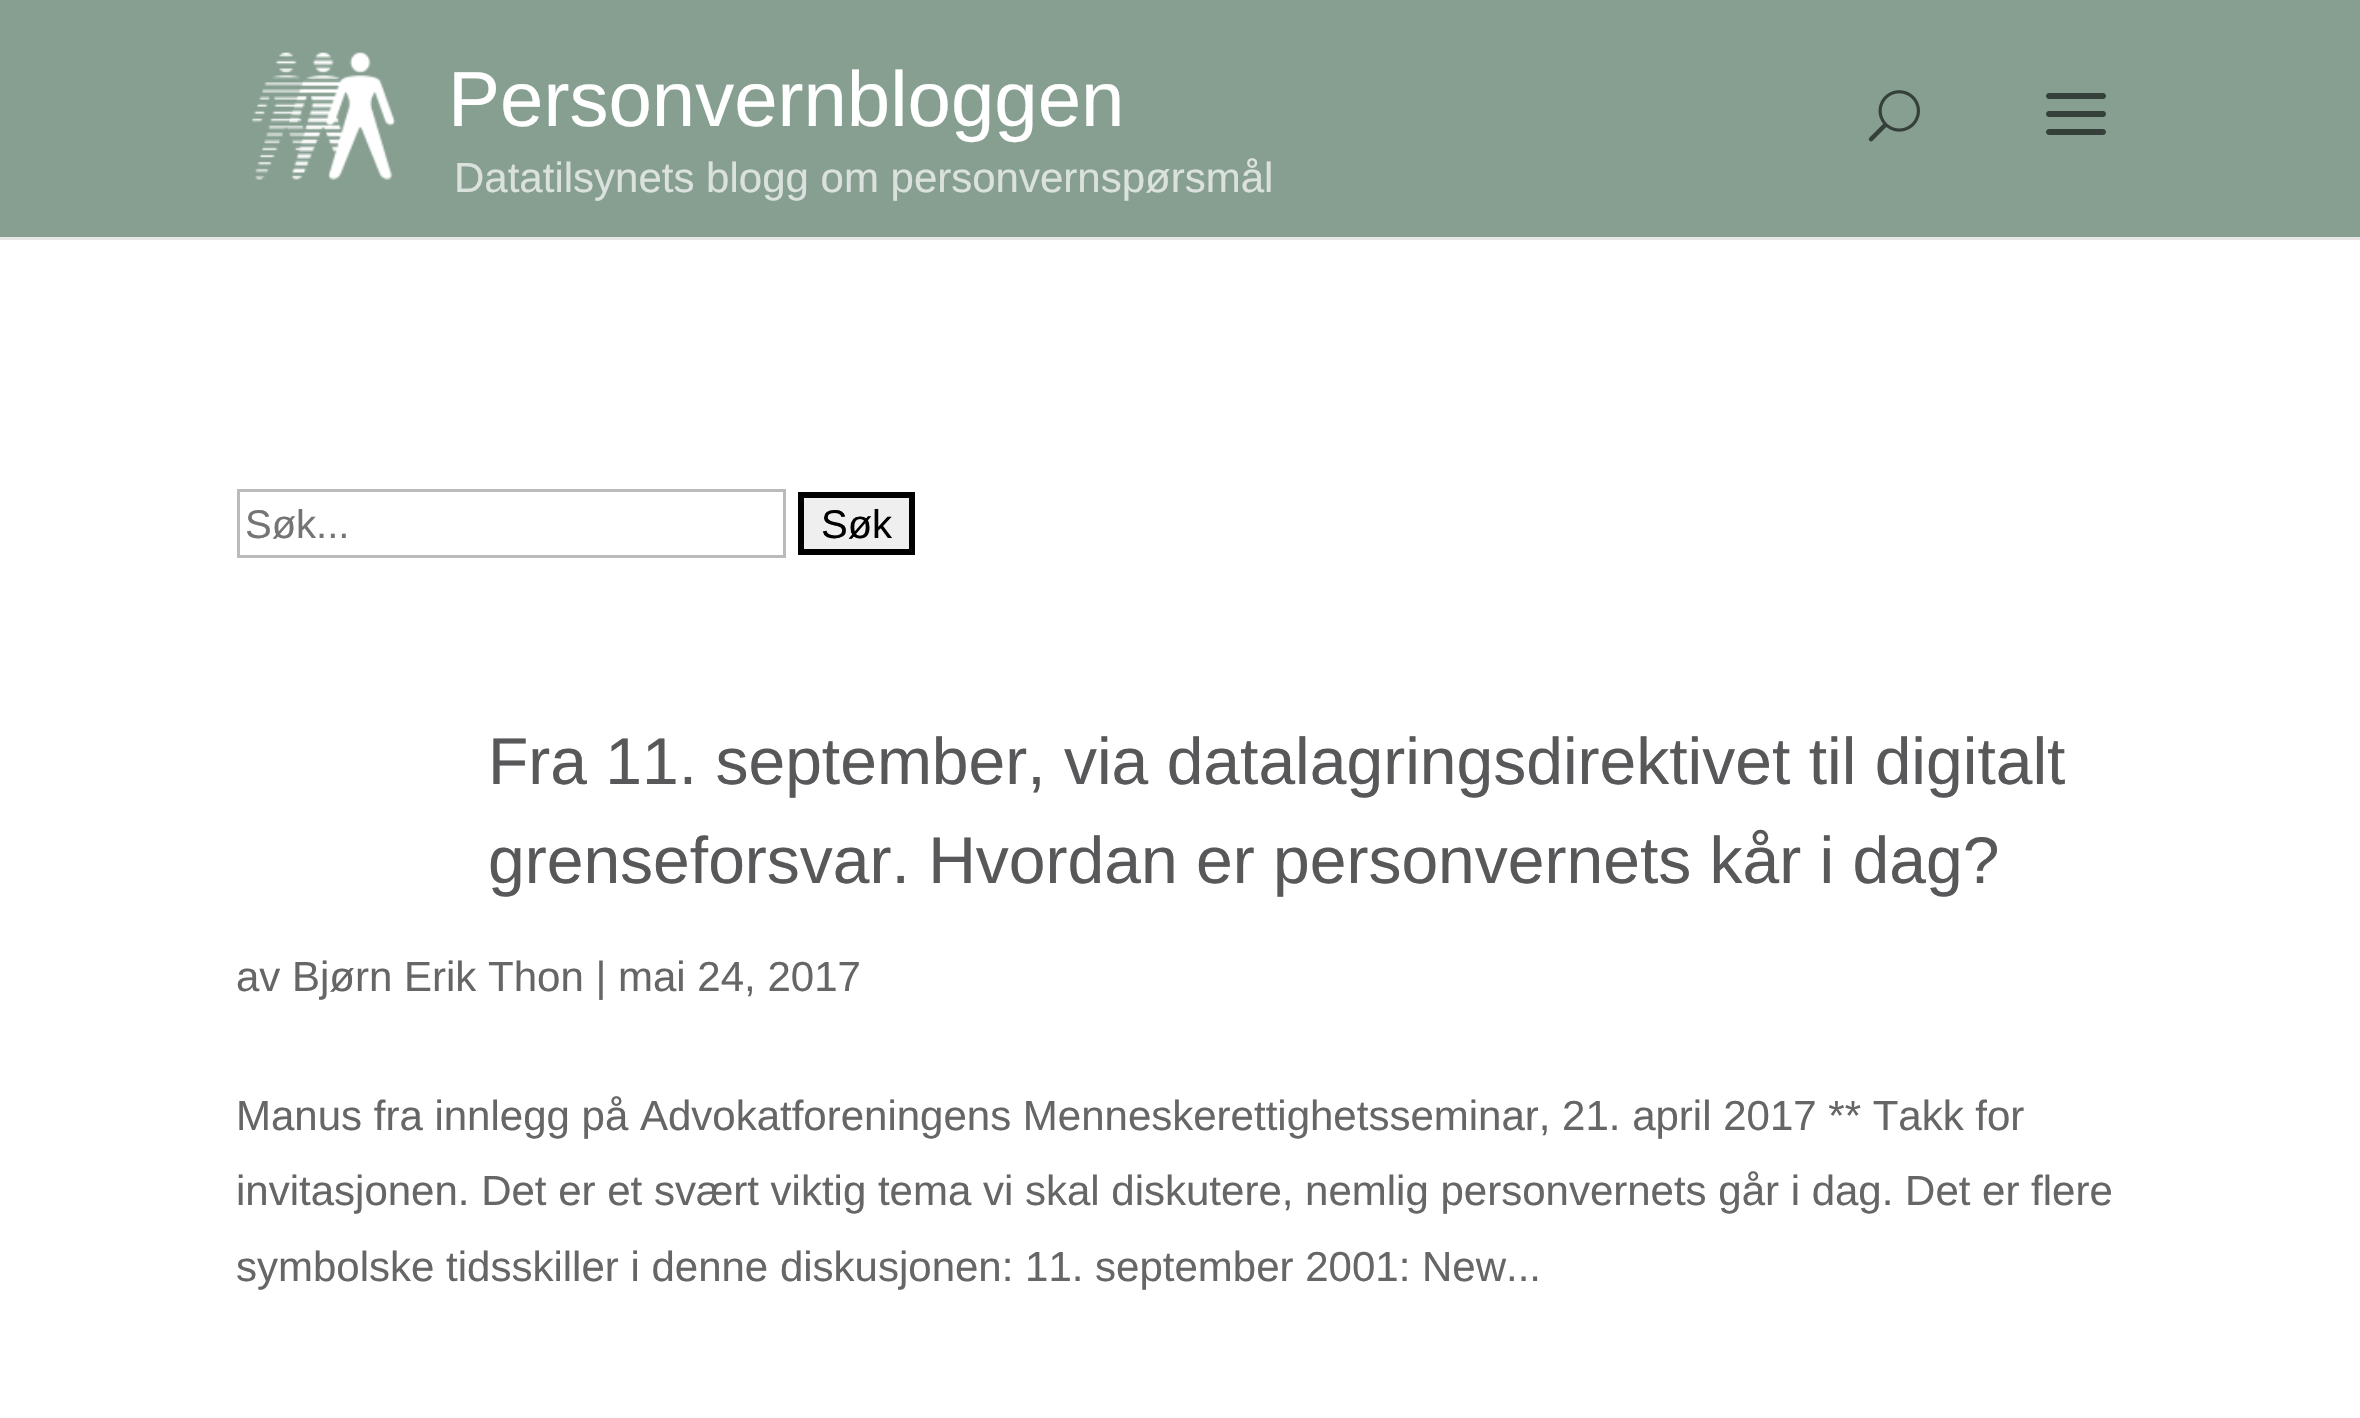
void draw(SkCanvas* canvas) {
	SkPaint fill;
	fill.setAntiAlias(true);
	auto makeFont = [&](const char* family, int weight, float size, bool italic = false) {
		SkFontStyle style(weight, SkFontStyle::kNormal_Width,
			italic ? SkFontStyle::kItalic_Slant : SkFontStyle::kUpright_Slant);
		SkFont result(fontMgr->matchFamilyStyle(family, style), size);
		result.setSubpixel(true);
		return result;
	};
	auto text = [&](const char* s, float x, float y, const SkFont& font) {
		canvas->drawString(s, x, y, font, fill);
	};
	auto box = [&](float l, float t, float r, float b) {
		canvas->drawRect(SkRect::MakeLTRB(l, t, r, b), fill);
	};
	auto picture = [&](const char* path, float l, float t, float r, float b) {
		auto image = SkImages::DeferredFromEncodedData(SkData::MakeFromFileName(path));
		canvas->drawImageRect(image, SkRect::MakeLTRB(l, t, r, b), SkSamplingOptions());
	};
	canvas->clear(0xFFFFFFFF);
	fill.setColor(0xFFE6E6E6);
	box(0, 237, 2360, 240);
	fill.setColor(0xFF869F91);
	box(0, 0, 2360, 237);
	picture("image0.png", 252, 52, 396, 180);
	picture("image1.png", 1868, 90, 1920, 142);
	picture("image2.png", 2046, 93, 2106, 135);
	fill.setStyle(SkPaint::kStroke_Style);
	fill.setStrokeWidth(3);
	fill.setColor(0xFFBBBBBB);
	canvas->drawRect(SkRect::MakeLTRB(238.5f, 490.5f, 784.5f, 556.5f), fill);
	fill.setStyle(SkPaint::kFill_Style);
	fill.setColor(0xFFEFEFEF);
	canvas->drawRect(SkRect::MakeLTRB(801, 495, 912, 552), fill);
	fill.setStyle(SkPaint::kStroke_Style);
	fill.setStrokeWidth(6);
	fill.setColor(0xFF000000);
	canvas->drawRect(SkRect::MakeLTRB(801, 495, 912, 552), fill);
	auto font1 = makeFont("Liberation Sans", 400, 78);
	fill.setStyle(SkPaint::kFill_Style);
	fill.setColor(0xFFFFFFFF);
	text("Personvernbloggen", 448, 126, font1);
	auto font2 = makeFont("Liberation Sans", 400, 42);
	fill.setColor(0xFFDBE2DE);
	text("Datatilsynets blogg om personvernspørsmål", 454, 192, font2);
	auto font3 = makeFont("Liberation Sans", 400, 40);
	fill.setColor(0xFF757575);
	text("Søk...", 245, 538, font3);
	fill.setColor(0xFF000000);
	text("Søk", 821, 538, font3);
	auto font4 = makeFont("Liberation Sans", 400, 66);
	fill.setColor(0xFF58585A);
	text("Fra 11. september, via datalagringsdirektivet til digitalt", 488, 784, font4);
	text("grenseforsvar. Hvordan er personvernets kår i dag?", 488, 883, font4);
	fill.setColor(0xFF666666);
	text("av Bjørn Erik Thon | mai 24, 2017", 236, 991, font2);
	text("Manus fra innlegg på Advokatforeningens Menneskerettighetsseminar, 21. april 2017 ** Takk for", 236, 1130, font2);
	text("invitasjonen. Det er et svært viktig tema vi skal diskutere, nemlig personvernets går i dag. Det er flere", 236, 1205, font2);
	text("symbolske tidsskiller i denne diskusjonen: 11. september 2001: New...", 236, 1281, font2);
}
